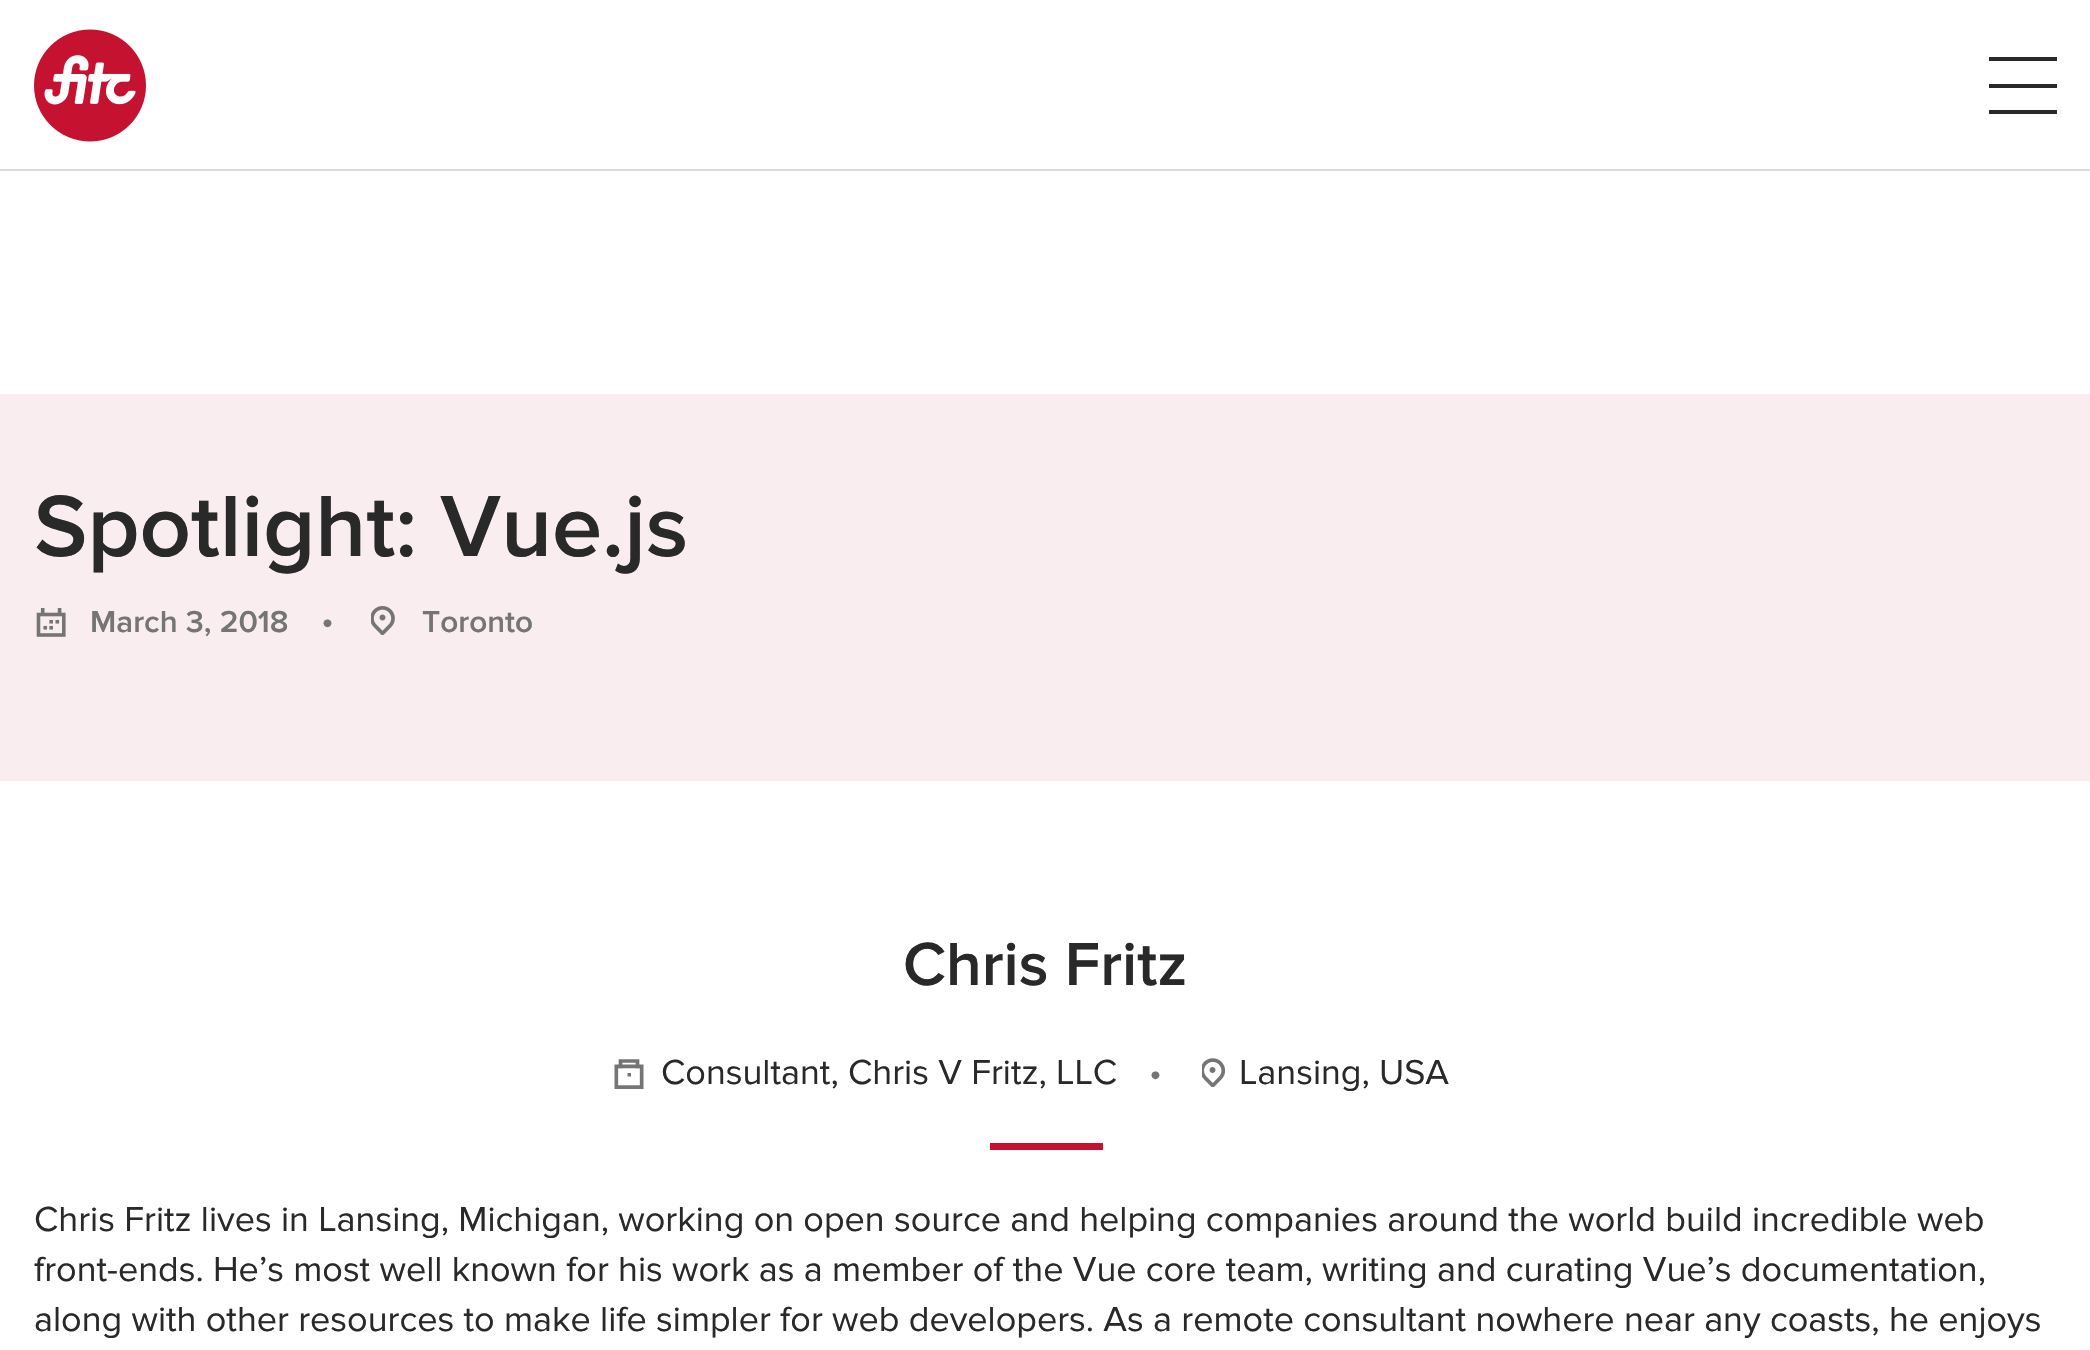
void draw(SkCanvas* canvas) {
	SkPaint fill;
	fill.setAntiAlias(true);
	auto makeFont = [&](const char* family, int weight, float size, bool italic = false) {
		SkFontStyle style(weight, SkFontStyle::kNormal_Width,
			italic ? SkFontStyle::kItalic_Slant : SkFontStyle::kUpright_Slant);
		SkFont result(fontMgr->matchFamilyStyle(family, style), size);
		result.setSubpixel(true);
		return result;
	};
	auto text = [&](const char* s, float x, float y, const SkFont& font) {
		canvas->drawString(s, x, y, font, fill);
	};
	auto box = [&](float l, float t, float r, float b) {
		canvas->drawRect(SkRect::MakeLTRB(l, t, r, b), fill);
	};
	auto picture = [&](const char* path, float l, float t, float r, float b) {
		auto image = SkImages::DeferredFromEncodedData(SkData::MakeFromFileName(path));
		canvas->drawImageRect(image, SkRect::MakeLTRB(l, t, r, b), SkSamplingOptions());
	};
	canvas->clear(0xFFFFFFFF);
	fill.setColor(0xFFDBDBDB);
	box(0, 169, 2090, 171);
	picture("image0.png", 34, 29, 146, 142);
	fill.setColor(0xFF292929);
	box(1989, 110, 2057, 114);
	box(1989, 84, 2057, 88);
	box(1989, 57, 2057, 61);
	fill.setColor(0xFFF9EDEF);
	box(0, 394, 2090, 781);
	picture("image1.png", 36, 608, 66, 637);
	picture("image2.png", 371, 606, 395, 635);
	fill.setStyle(SkPaint::kStroke_Style);
	fill.setStrokeWidth(3.7f);
	fill.setStrokeCap(SkPaint::kSquare_Cap);
	fill.setColor(0xFF757575);
	canvas->drawPath(SkPathBuilder().moveTo(637.5f, 1066.5f).lineTo(637.5f, 1061).lineTo(620.5f, 1061).lineTo(620.5f, 1066.5f).detach(), fill);
	canvas->save();
	canvas->clipPath(SkPathBuilder().moveTo(614.5f, 1064.5f).lineTo(643.5f, 1064.5f).lineTo(643.5f, 1089).lineTo(614.5f, 1089).close().detach(), true);
	fill.setStrokeWidth(7.3f);
	fill.setStrokeCap(SkPaint::kButt_Cap);
	canvas->drawPath(SkPathBuilder().moveTo(614.5f, 1064.5f).lineTo(643.5f, 1064.5f).lineTo(643.5f, 1089).lineTo(614.5f, 1089).close().detach(), fill);
	canvas->restore();
	fill.setStyle(SkPaint::kFill_Style);
	canvas->drawPath(SkPathBuilder(SkPathFillType::kEvenOdd).moveTo(627.5f, 1073).lineTo(631, 1073).lineTo(631, 1076.5f).lineTo(627.5f, 1076.5f).close().detach(), fill);
	picture("image3.png", 1202, 1058, 1226, 1087);
	fill.setColor(0xFFC41230);
	box(990, 1143, 1103, 1150);
	auto font1 = makeFont("Proxima Nova", 600, 90);
	fill.setColor(0xFF292929);
	text("Spotlight: Vue.js", 34, 556, font1);
	auto font2 = makeFont("Proxima Nova", 600, 31.5f);
	fill.setColor(0xFF757575);
	text("March 3, 2018", 90, 632, font2);
	auto font3 = makeFont("Proxima Nova", 400, 36);
	text("•", 321, 632, font3);
	text("Toronto", 422, 632, font2);
	auto font4 = makeFont("Proxima Nova", 600, 63);
	fill.setColor(0xFF292929);
	text("Chris Fritz", 903, 985, font4);
	text("Consultant, Chris V Fritz, LLC", 661, 1084, font3);
	fill.setColor(0xFF757575);
	text("•", 1149, 1084, font3);
	fill.setColor(0xFF292929);
	text("Lansing, USA", 1239, 1084, font3);
	text("Chris Fritz lives in Lansing, Michigan, working on open source and helping companies around the world build incredible web", 34, 1231, font3);
	text("front-ends. He’s most well known for his work as a member of the Vue core team, writing and curating Vue’s documentation,", 34, 1281, font3);
	text("along with other resources to make life simpler for web developers. As a remote consultant nowhere near any coasts, he enjoys", 34, 1331, font3);
}
